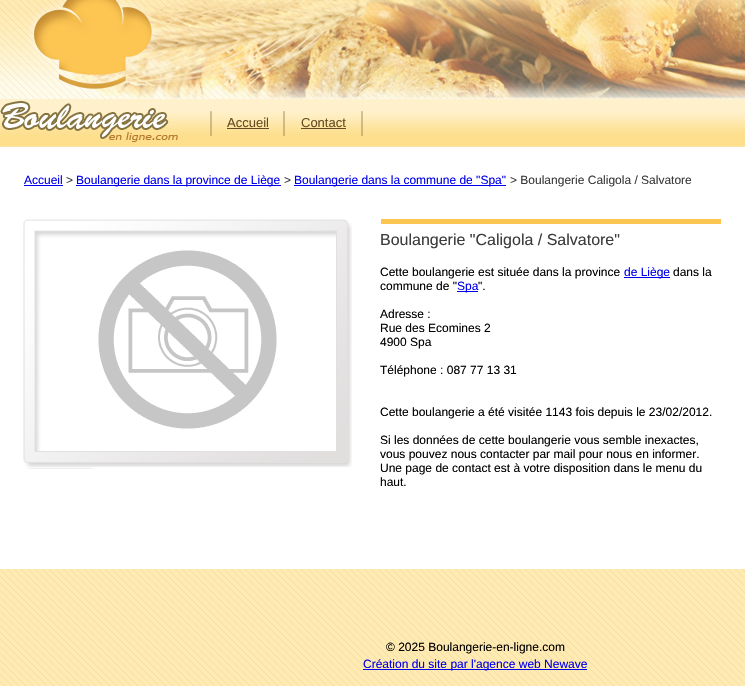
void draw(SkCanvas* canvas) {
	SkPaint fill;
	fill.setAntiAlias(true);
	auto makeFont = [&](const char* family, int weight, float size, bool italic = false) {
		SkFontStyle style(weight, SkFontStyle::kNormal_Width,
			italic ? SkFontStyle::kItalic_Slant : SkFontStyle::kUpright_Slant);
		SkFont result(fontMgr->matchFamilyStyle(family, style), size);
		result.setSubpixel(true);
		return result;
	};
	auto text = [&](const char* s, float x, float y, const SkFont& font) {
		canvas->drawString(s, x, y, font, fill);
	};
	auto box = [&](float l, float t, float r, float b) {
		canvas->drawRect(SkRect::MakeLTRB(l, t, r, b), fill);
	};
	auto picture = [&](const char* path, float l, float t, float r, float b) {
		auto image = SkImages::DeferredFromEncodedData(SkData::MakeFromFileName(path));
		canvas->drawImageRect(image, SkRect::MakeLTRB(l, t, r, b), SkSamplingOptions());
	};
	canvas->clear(0xFFFFFFFF);
	picture("image0.png", 0, 0, 745, 147);
	picture("image1.png", 65, 0, 745, 99);
	picture("image2.png", 0, 0, 178, 142);
	picture("image3.png", 210, 111, 212, 136);
	fill.setColor(0xFF654C22);
	box(227, 128, 269, 129);
	picture("image4.png", 283, 111, 285, 136);
	box(301, 128, 346, 129);
	picture("image5.png", 361, 111, 363, 136);
	fill.setColor(0xFF0000EE);
	box(24, 185, 63, 186);
	box(76, 185, 281, 186);
	box(294, 185, 506, 186);
	picture("image7.png", 98, 250, 277, 429);
	picture("image6.png", 23, 219, 352, 469);
	fill.setColor(0xFFFCC552);
	box(381, 219, 721, 224);
	fill.setColor(0xFF0000EE);
	box(624, 277, 670, 278);
	box(457, 291, 478, 292);
	picture("image8.png", 0, 569, 745, 686);
	box(363, 669, 587, 670);
	auto font1 = makeFont("Liberation Sans", 400, 13);
	fill.setColor(0xFF654C22);
	text("Accueil", 227, 127, font1);
	text("Contact", 301, 127, font1);
	auto font2 = makeFont("Liberation Sans", 400, 12);
	fill.setColor(0xFF0000EE);
	text("Accueil", 24, 184, font2);
	fill.setColor(0xFF3B3B3B);
	text(">", 66, 184, font2);
	fill.setColor(0xFF0000EE);
	text("Boulangerie dans la province de Liège", 76, 184, font2);
	fill.setColor(0xFF3B3B3B);
	text(">", 284, 184, font2);
	fill.setColor(0xFF0000EE);
	text("Boulangerie dans la commune de \"Spa\"", 294, 184, font2);
	fill.setColor(0xFF3B3B3B);
	text("> Boulangerie Caligola / Salvatore", 510, 184, font2);
	auto font3 = makeFont("Liberation Sans", 400, 16);
	text("Boulangerie \"Caligola / Salvatore\"", 380, 245, font3);
	fill.setColor(0xFF000000);
	text("Cette boulangerie est située dans la province", 380, 276, font2);
	fill.setColor(0xFF0000EE);
	text("de Liège", 624, 276, font2);
	fill.setColor(0xFF000000);
	text("dans la", 673, 276, font2);
	text("commune de \"", 380, 290, font2);
	fill.setColor(0xFF0000EE);
	text("Spa", 457, 290, font2);
	fill.setColor(0xFF000000);
	text("\".", 478, 290, font2);
	text("Adresse :", 380, 318, font2);
	text("Rue des Ecomines 2", 380, 332, font2);
	text("4900 Spa", 380, 346, font2);
	text("Téléphone : 087 77 13 31", 380, 374, font2);
	text("Cette boulangerie a été visitée 1143 fois depuis le 23/02/2012.", 380, 416, font2);
	text("Si les données de cette boulangerie vous semble inexactes,", 380, 444, font2);
	text("vous pouvez nous contacter par mail pour nous en informer.", 380, 458, font2);
	text("Une page de contact est à votre disposition dans le menu du", 380, 472, font2);
	text("haut.", 380, 486, font2);
	text("© 2025 Boulangerie-en-ligne.com", 386, 651, font2);
	fill.setColor(0xFF0000EE);
	text("Création du site par l'agence web Newave", 363, 668, font2);
}
